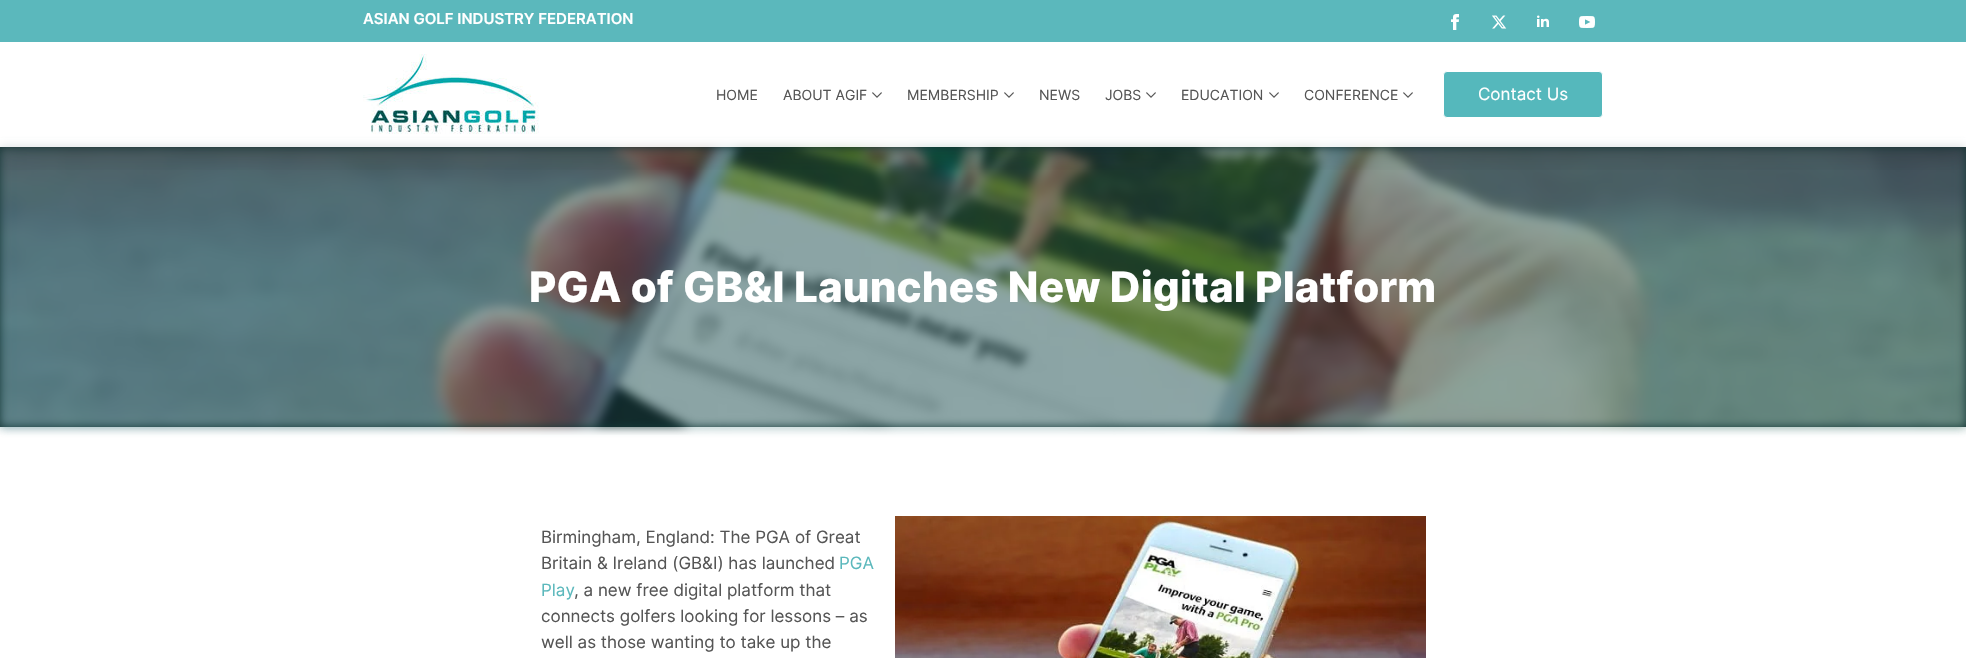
void draw(SkCanvas* canvas) {
	SkPaint fill;
	fill.setAntiAlias(true);
	auto makeFont = [&](const char* family, int weight, float size, bool italic = false) {
		SkFontStyle style(weight, SkFontStyle::kNormal_Width,
			italic ? SkFontStyle::kItalic_Slant : SkFontStyle::kUpright_Slant);
		SkFont result(fontMgr->matchFamilyStyle(family, style), size);
		result.setSubpixel(true);
		return result;
	};
	auto text = [&](const char* s, float x, float y, const SkFont& font) {
		canvas->drawString(s, x, y, font, fill);
	};
	auto spacedText = [&](const char* s, float x, float y, const SkFont& font, const SkPaint& ink, float letter, float word) {
		std::vector<SkGlyphID> glyphs(font.countText(s, strlen(s), SkTextEncoding::kUTF8));
		std::vector<float> xs(glyphs.size());
		font.textToGlyphs(s, strlen(s), SkTextEncoding::kUTF8, glyphs);
		font.getXPos(glyphs, xs, x);
		float extra = 0;
		for (size_t i = 0; i < glyphs.size(); i++) {
			xs[i] += extra;
			extra += letter + word * (glyphs[i] == font.unicharToGlyph(' '));
		}
		canvas->drawTextBlob(SkTextBlob::MakeFromPosHGlyphs(glyphs, xs, y, font), 0, 0, ink);
	};
	auto box = [&](float l, float t, float r, float b) {
		canvas->drawRect(SkRect::MakeLTRB(l, t, r, b), fill);
	};
	auto picture = [&](const char* path, float l, float t, float r, float b) {
		auto image = SkImages::DeferredFromEncodedData(SkData::MakeFromFileName(path));
		canvas->drawImageRect(image, SkRect::MakeLTRB(l, t, r, b), SkSamplingOptions());
	};
	canvas->clear(0xFFFFFFFF);
	fill.setColor(0xFF153332);
	box(0, 147, 1966, 427);
	fill.setColor(0x80175F63);
	fill.setMaskFilter(SkMaskFilter::MakeBlur(kNormal_SkBlurStyle, 5));
	canvas->drawRect(SkRect::MakeLTRB(0, 147, 1966, 427), fill);
	fill.setMaskFilter(nullptr);
	picture("image6.png", 0, 139, 1966, 435);
	canvas->save();
	canvas->clipRect(SkRect::MakeLTRB(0, 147, 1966, 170));
	fill.setColor(0x33000000);
	fill.setMaskFilter(SkMaskFilter::MakeBlur(kNormal_SkBlurStyle, 15));
	canvas->drawRect(SkRect::MakeLTRB(0, 4, 1966, 151), fill);
	fill.setMaskFilter(nullptr);
	canvas->restore();
	fill.setColor(0xBFFFFFFF);
	box(0, 138, 1966, 147);
	fill.setColor(0xFF5BB8BC);
	box(0, 0, 1966, 42);
	picture("image0.png", 1451, 14, 1459, 30);
	picture("image1.png", 1492, 15, 1507, 29);
	picture("image2.png", 1537, 15, 1549, 27);
	picture("image3.png", 1579, 16, 1595, 28);
	picture("image4.png", 363, 54, 539, 134);
	picture("image5.png", 872, 92, 882, 98);
	picture("image5.png", 1004, 92, 1014, 98);
	picture("image5.png", 1146, 92, 1156, 98);
	picture("image5.png", 1269, 92, 1279, 98);
	picture("image5.png", 1403, 92, 1413, 98);
	fill.setColor(0xFF55B8BC);
	canvas->drawRoundRect(SkRect::MakeLTRB(1443.5f, 71.5f, 1602.5f, 117.5f), 3.5f, 3.5f, fill);
	fill.setStyle(SkPaint::kStroke_Style);
	fill.setStrokeWidth(1);
	fill.setColor(0xFFFFFFFF);
	canvas->drawRoundRect(SkRect::MakeLTRB(1443.5f, 71.5f, 1602.5f, 117.5f), 3.5f, 3.5f, fill);
	picture("image7.png", 895, 516, 1426, 658);
	auto font1 = makeFont("Inter", 600, 15);
	fill.setStyle(SkPaint::kFill_Style);
	text("ASIAN GOLF INDUSTRY FEDERATION", 363, 24, font1);
	auto font2 = makeFont("Inter", 400, 14);
	fill.setColor(0xFF555555);
	text("HOME", 716, 100, font2);
	text("ABOUT AGIF", 783, 100, font2);
	text("MEMBERSHIP", 907, 100, font2);
	text("NEWS", 1039, 100, font2);
	text("JOBS", 1105, 100, font2);
	text("EDUCATION", 1181, 100, font2);
	text("CONFERENCE", 1304, 100, font2);
	auto font3 = makeFont("Inter", 400, 17);
	fill.setColor(0xFFFFFFFF);
	text("Contact Us", 1478, 100, font3);
	auto font4 = makeFont("Inter", 800, 42);
	spacedText("PGA of GB&I Launches New Digital Platform", 529, 302, font4, fill, 0.2f, 0);
	fill.setColor(0xFF555555);
	text("Birmingham, England: The PGA of Great", 541, 543, font3);
	text("Britain & Ireland (GB&I) has launched", 541, 569, font3);
	fill.setColor(0xFF5BB8BC);
	text("PGA", 839, 569, font3);
	text("Play", 541, 596, font3);
	fill.setColor(0xFF555555);
	text(", a new free digital platform that", 574, 596, font3);
	text("connects golfers looking for lessons – as", 541, 622, font3);
	text("well as those wanting to take up the", 541, 648, font3);
}
